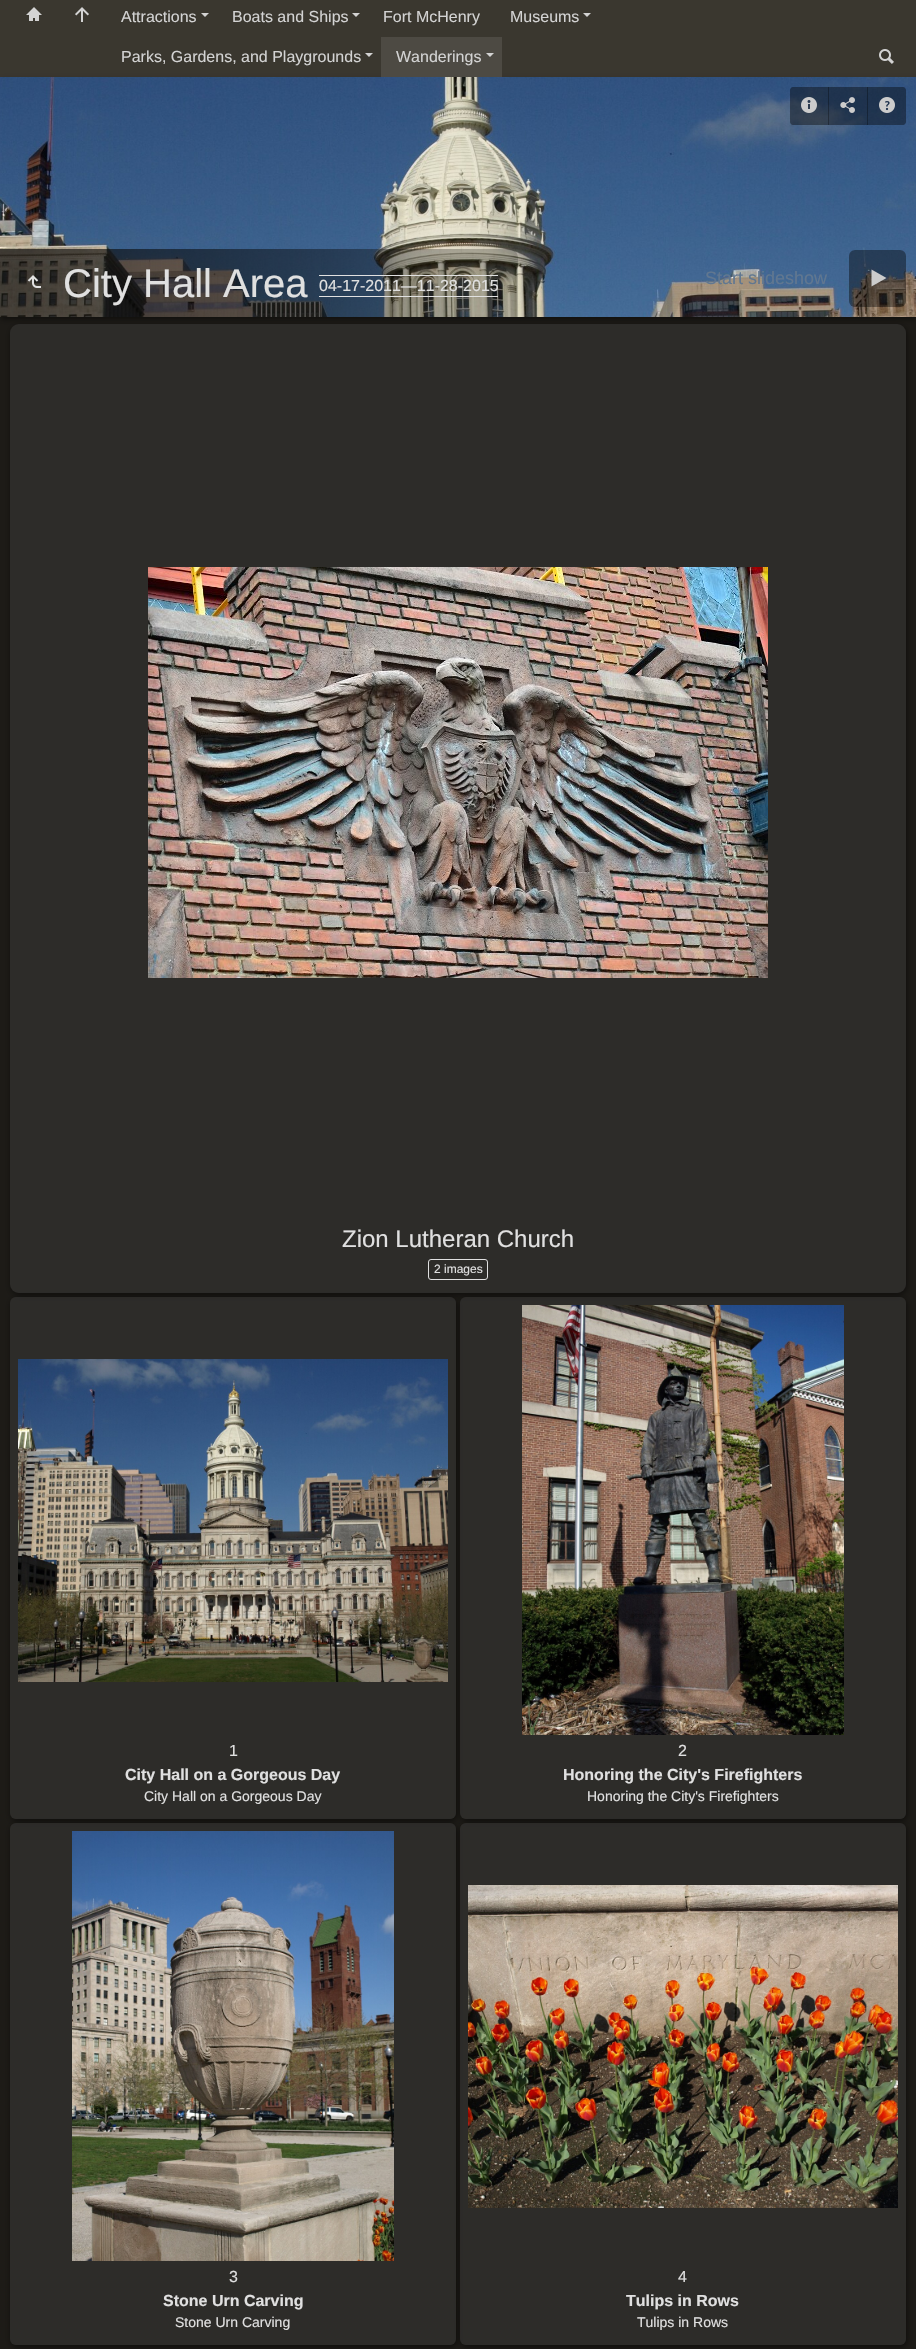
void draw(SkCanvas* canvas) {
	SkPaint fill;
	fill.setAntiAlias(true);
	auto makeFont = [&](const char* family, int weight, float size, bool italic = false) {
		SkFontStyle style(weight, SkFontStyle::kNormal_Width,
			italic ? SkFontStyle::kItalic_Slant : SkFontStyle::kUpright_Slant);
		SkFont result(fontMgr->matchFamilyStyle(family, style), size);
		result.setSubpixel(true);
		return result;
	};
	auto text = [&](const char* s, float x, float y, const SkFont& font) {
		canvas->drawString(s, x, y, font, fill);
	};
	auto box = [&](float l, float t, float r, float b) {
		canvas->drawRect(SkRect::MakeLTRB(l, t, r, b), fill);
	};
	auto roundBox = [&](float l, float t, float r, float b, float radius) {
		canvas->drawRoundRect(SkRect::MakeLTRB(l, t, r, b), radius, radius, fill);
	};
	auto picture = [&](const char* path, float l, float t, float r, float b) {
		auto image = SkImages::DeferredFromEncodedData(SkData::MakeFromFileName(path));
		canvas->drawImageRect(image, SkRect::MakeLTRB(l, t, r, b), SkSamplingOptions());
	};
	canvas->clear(0xFF1D1B17);
	fill.setColor(0x82000000);
	fill.setMaskFilter(SkMaskFilter::MakeBlur(kNormal_SkBlurStyle, 3));
	canvas->drawRect(SkRect::MakeLTRB(1, 79, 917, 319), fill);
	fill.setMaskFilter(nullptr);
	fill.setColor(0x66655F52);
	box(0, 0, 916, 77);
	picture("image0.png", 26, 7, 42, 21);
	picture("image1.png", 75, 7, 89, 22);
	fill.setColor(0xFFD3D3D3);
	canvas->drawPath(SkPathBuilder().moveTo(201, 13).lineTo(209, 13).lineTo(205, 17).close().detach(), fill);
	canvas->drawPath(SkPathBuilder().moveTo(352, 13).lineTo(360, 13).lineTo(356, 17).close().detach(), fill);
	canvas->drawPath(SkPathBuilder().moveTo(583, 13).lineTo(591, 13).lineTo(587, 17).close().detach(), fill);
	canvas->drawPath(SkPathBuilder().moveTo(365, 53).lineTo(373, 53).lineTo(369, 57).close().detach(), fill);
	fill.setColor(0xFF4D4A43);
	box(381, 37, 502, 77);
	fill.setColor(0xFFD3D3D3);
	canvas->drawPath(SkPathBuilder().moveTo(486, 53).lineTo(494, 53).lineTo(490, 57).close().detach(), fill);
	picture("image2.png", 879, 49, 894, 64);
	picture("image3.png", 0, 77, 916, 317);
	picture("image4.png", 27, 275, 41, 288);
	fill.setColor(0xFFE1E1E1);
	box(319, 275, 498, 276);
	box(319, 296, 498, 297);
	fill.setColor(0x66000000);
	canvas->drawPath(SkPathBuilder().moveTo(793, 87).lineTo(828, 87).lineTo(828, 125).lineTo(793, 125).cubicTo(791.5f, 125, 790, 123.5f, 790, 122).lineTo(790, 90).cubicTo(790, 88.5f, 791.5f, 87, 793, 87).close().detach(), fill);
	picture("image5.png", 801, 97, 817, 113);
	box(828, 87, 867, 125);
	fill.setColor(0x4D000000);
	box(828, 87, 829, 125);
	picture("image6.png", 840, 97, 855, 113);
	fill.setColor(0x66000000);
	canvas->drawPath(SkPathBuilder().moveTo(867, 87).lineTo(903, 87).cubicTo(904.5f, 87, 906, 88.5f, 906, 90).lineTo(906, 122).cubicTo(906, 123.5f, 904.5f, 125, 903, 125).lineTo(867, 125).close().detach(), fill);
	fill.setColor(0x4D000000);
	box(867, 87, 868, 125);
	picture("image7.png", 879, 97, 895, 113);
	fill.setColor(0x66000000);
	roundBox(849, 250, 906, 307, 6);
	fill.setColor(0xFFCCCCCC);
	canvas->drawPath(SkPathBuilder().moveTo(871.5f, 269.5f).lineTo(886.5f, 278).lineTo(871.5f, 286.5f).close().detach(), fill);
	canvas->save();
	canvas->clipPath(SkPathBuilder(SkPathFillType::kEvenOdd).moveTo(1, 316).lineTo(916, 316).lineTo(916, 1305).lineTo(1, 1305).close().moveTo(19, 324).lineTo(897, 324).cubicTo(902, 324, 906, 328, 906, 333).lineTo(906, 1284).cubicTo(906, 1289, 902, 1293, 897, 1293).lineTo(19, 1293).cubicTo(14, 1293, 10, 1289, 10, 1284).lineTo(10, 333).cubicTo(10, 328, 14, 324, 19, 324).close().detach(), true);
	fill.setColor(0x82000000);
	fill.setMaskFilter(SkMaskFilter::MakeBlur(kNormal_SkBlurStyle, 3));
	canvas->drawRoundRect(SkRect::MakeLTRB(11, 326, 907, 1295), 9, 9, fill);
	fill.setMaskFilter(nullptr);
	canvas->restore();
	fill.setColor(0x66444444);
	roundBox(10, 324, 906, 1293, 9);
	picture("image8.png", 148, 567, 768, 978);
	fill.setStyle(SkPaint::kStroke_Style);
	fill.setStrokeWidth(1);
	fill.setColor(0xFFE0E0E0);
	canvas->drawRoundRect(SkRect::MakeLTRB(428.5f, 1259.5f, 487.5f, 1279.5f), 2.5f, 2.5f, fill);
	canvas->save();
	canvas->clipPath(SkPathBuilder(SkPathFillType::kEvenOdd).moveTo(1, 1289).lineTo(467, 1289).lineTo(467, 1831).lineTo(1, 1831).close().moveTo(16, 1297).lineTo(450, 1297).cubicTo(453.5f, 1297, 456, 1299.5f, 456, 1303).lineTo(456, 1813).cubicTo(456, 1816.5f, 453.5f, 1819, 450, 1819).lineTo(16, 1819).cubicTo(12.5f, 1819, 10, 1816.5f, 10, 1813).lineTo(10, 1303).cubicTo(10, 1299.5f, 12.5f, 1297, 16, 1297).close().detach(), true);
	fill.setStyle(SkPaint::kFill_Style);
	fill.setColor(0x82000000);
	fill.setMaskFilter(SkMaskFilter::MakeBlur(kNormal_SkBlurStyle, 3));
	canvas->drawRoundRect(SkRect::MakeLTRB(11, 1299, 457, 1821), 6, 6, fill);
	fill.setMaskFilter(nullptr);
	canvas->restore();
	fill.setColor(0x66444444);
	roundBox(10, 1297, 456, 1819, 6);
	picture("image9.png", 18, 1359, 448, 1682);
	canvas->save();
	canvas->clipPath(SkPathBuilder(SkPathFillType::kEvenOdd).moveTo(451, 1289).lineTo(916, 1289).lineTo(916, 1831).lineTo(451, 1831).close().moveTo(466, 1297).lineTo(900, 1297).cubicTo(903.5f, 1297, 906, 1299.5f, 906, 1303).lineTo(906, 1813).cubicTo(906, 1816.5f, 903.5f, 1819, 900, 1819).lineTo(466, 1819).cubicTo(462.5f, 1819, 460, 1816.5f, 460, 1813).lineTo(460, 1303).cubicTo(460, 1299.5f, 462.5f, 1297, 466, 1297).close().detach(), true);
	fill.setColor(0x82000000);
	fill.setMaskFilter(SkMaskFilter::MakeBlur(kNormal_SkBlurStyle, 3));
	canvas->drawRoundRect(SkRect::MakeLTRB(461, 1299, 907, 1821), 6, 6, fill);
	fill.setMaskFilter(nullptr);
	canvas->restore();
	fill.setColor(0x66444444);
	roundBox(460, 1297, 906, 1819, 6);
	picture("image10.png", 522, 1305, 844, 1735);
	canvas->save();
	canvas->clipPath(SkPathBuilder(SkPathFillType::kEvenOdd).moveTo(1, 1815).lineTo(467, 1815).lineTo(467, 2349).lineTo(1, 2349).close().moveTo(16, 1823).lineTo(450, 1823).cubicTo(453.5f, 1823, 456, 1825.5f, 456, 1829).lineTo(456, 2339).cubicTo(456, 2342.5f, 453.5f, 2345, 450, 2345).lineTo(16, 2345).cubicTo(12.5f, 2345, 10, 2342.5f, 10, 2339).lineTo(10, 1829).cubicTo(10, 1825.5f, 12.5f, 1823, 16, 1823).close().detach(), true);
	fill.setColor(0x82000000);
	fill.setMaskFilter(SkMaskFilter::MakeBlur(kNormal_SkBlurStyle, 3));
	canvas->drawRoundRect(SkRect::MakeLTRB(11, 1825, 457, 2347), 6, 6, fill);
	fill.setMaskFilter(nullptr);
	canvas->restore();
	fill.setColor(0x66444444);
	roundBox(10, 1823, 456, 2345, 6);
	picture("image11.png", 72, 1831, 394, 2261);
	canvas->save();
	canvas->clipPath(SkPathBuilder(SkPathFillType::kEvenOdd).moveTo(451, 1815).lineTo(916, 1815).lineTo(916, 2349).lineTo(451, 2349).close().moveTo(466, 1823).lineTo(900, 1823).cubicTo(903.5f, 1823, 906, 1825.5f, 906, 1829).lineTo(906, 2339).cubicTo(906, 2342.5f, 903.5f, 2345, 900, 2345).lineTo(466, 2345).cubicTo(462.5f, 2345, 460, 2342.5f, 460, 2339).lineTo(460, 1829).cubicTo(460, 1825.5f, 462.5f, 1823, 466, 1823).close().detach(), true);
	fill.setColor(0x82000000);
	fill.setMaskFilter(SkMaskFilter::MakeBlur(kNormal_SkBlurStyle, 3));
	canvas->drawRoundRect(SkRect::MakeLTRB(461, 1825, 907, 2347), 6, 6, fill);
	fill.setMaskFilter(nullptr);
	canvas->restore();
	fill.setColor(0x66444444);
	roundBox(460, 1823, 906, 2345, 6);
	picture("image12.png", 468, 1885, 898, 2208);
	auto font1 = makeFont("Liberation Sans", 400, 16);
	fill.setColor(0xFFD3D3D3);
	text("Attractions", 121, 22, font1);
	text("Boats and Ships", 232, 22, font1);
	text("Fort McHenry", 383, 22, font1);
	text("Museums", 510, 22, font1);
	text("Parks, Gardens, and Playgrounds", 121, 62, font1);
	text("Wanderings", 396, 62, font1);
	auto font2 = makeFont("Liberation Sans", 400, 40);
	fill.setColor(0xFFE0E0E0);
	text("City Hall Area", 63, 297, font2);
	text("04-17-2011—11-28-2015", 319, 291, font1);
	auto font3 = makeFont("Liberation Sans", 400, 18);
	fill.setColor(0xFF617790);
	text("Start slideshow", 705, 284, font3);
	auto font4 = makeFont("Liberation Sans", 400, 24);
	fill.setColor(0xFFE0E0E0);
	text("Zion Lutheran Church", 342, 1247, font4);
	auto font5 = makeFont("Liberation Sans", 400, 12);
	text("2 images", 434, 1273, font5);
	text("1", 229, 1756, font1);
	auto font6 = makeFont("Liberation Sans", 700, 16);
	text("City Hall on a Gorgeous Day", 125, 1780, font6);
	auto font7 = makeFont("Liberation Sans", 400, 14);
	text("City Hall on a Gorgeous Day", 144, 1801, font7);
	text("2", 678, 1756, font1);
	text("Honoring the City's Firefighters", 563, 1780, font6);
	text("Honoring the City's Firefighters", 587, 1801, font7);
	text("3", 229, 2282, font1);
	text("Stone Urn Carving", 163, 2306, font6);
	text("Stone Urn Carving", 175, 2327, font7);
	text("4", 678, 2282, font1);
	text("Tulips in Rows", 626, 2306, font6);
	text("Tulips in Rows", 637, 2327, font7);
}
